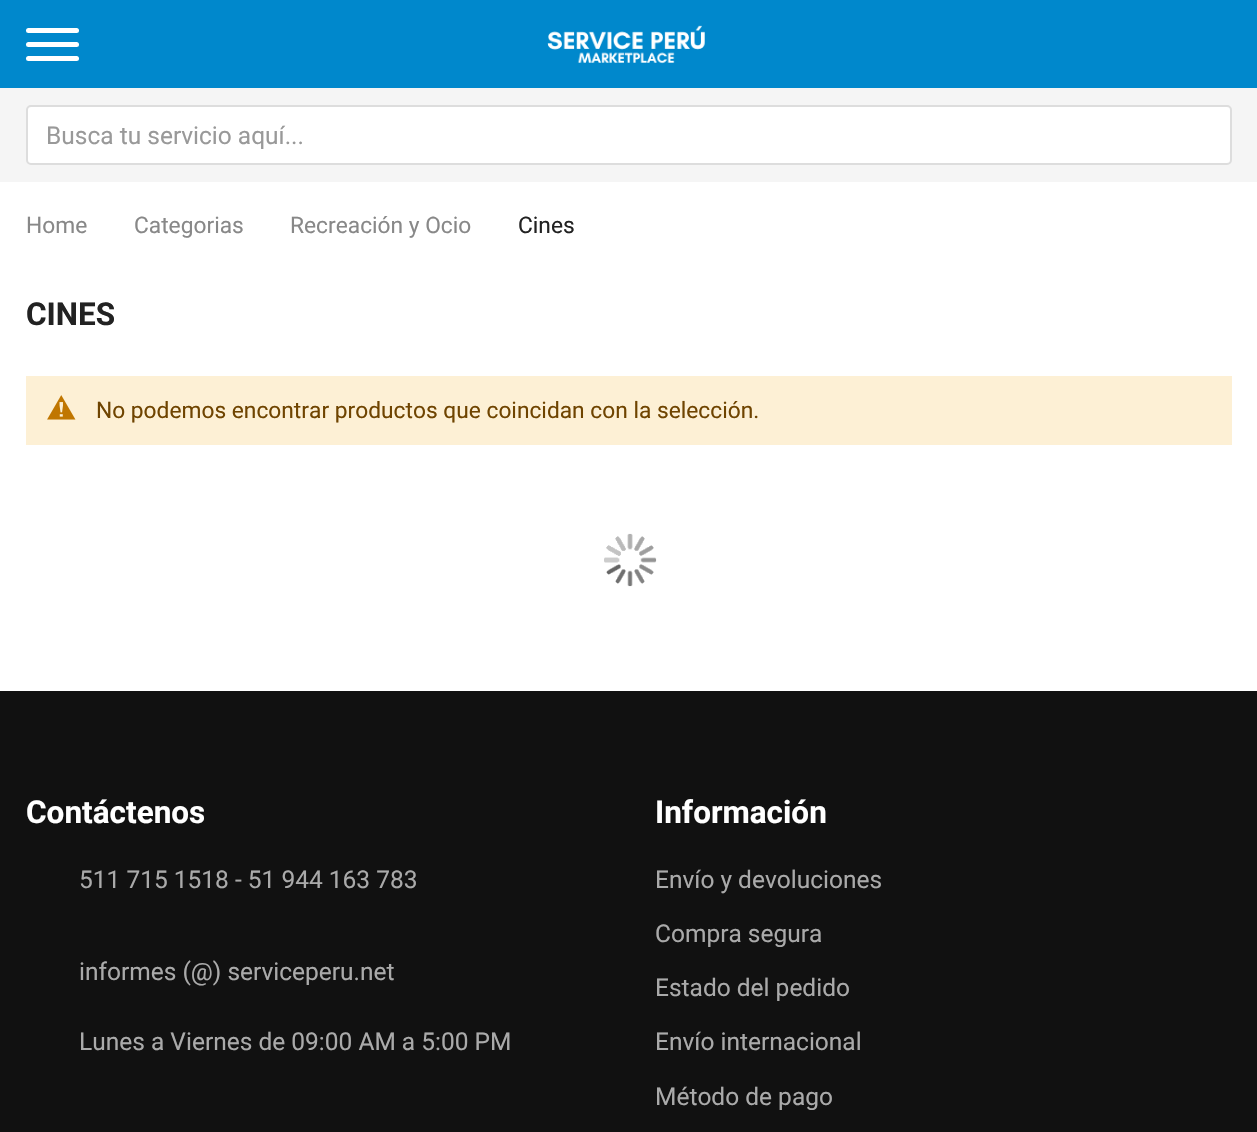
void draw(SkCanvas* canvas) {
	SkPaint fill;
	fill.setAntiAlias(true);
	auto makeFont = [&](const char* family, int weight, float size, bool italic = false) {
		SkFontStyle style(weight, SkFontStyle::kNormal_Width,
			italic ? SkFontStyle::kItalic_Slant : SkFontStyle::kUpright_Slant);
		SkFont result(fontMgr->matchFamilyStyle(family, style), size);
		result.setSubpixel(true);
		return result;
	};
	auto text = [&](const char* s, float x, float y, const SkFont& font) {
		canvas->drawString(s, x, y, font, fill);
	};
	auto box = [&](float l, float t, float r, float b) {
		canvas->drawRect(SkRect::MakeLTRB(l, t, r, b), fill);
	};
	auto roundBox = [&](float l, float t, float r, float b, float radius) {
		canvas->drawRoundRect(SkRect::MakeLTRB(l, t, r, b), radius, radius, fill);
	};
	auto picture = [&](const char* path, float l, float t, float r, float b) {
		auto image = SkImages::DeferredFromEncodedData(SkData::MakeFromFileName(path));
		canvas->drawImageRect(image, SkRect::MakeLTRB(l, t, r, b), SkSamplingOptions());
	};
	canvas->clear(0xFFFFFFFF);
	fill.setColor(0xFF0088CC);
	box(0, 0, 1257, 88);
	fill.setColor(0xFFFFFFFF);
	roundBox(26, 28, 79, 33, 2.5f);
	roundBox(26, 42, 79, 47, 2.5f);
	roundBox(26, 56, 79, 61, 2.5f);
	picture("image0.png", 547, 25, 705, 64);
	fill.setColor(0xFFF5F5F5);
	box(0, 88, 1257, 182);
	fill.setColor(0xFFFFFFFF);
	canvas->drawRoundRect(SkRect::MakeLTRB(27, 106, 1231, 164), 4, 4, fill);
	fill.setStyle(SkPaint::kStroke_Style);
	fill.setStrokeWidth(2);
	fill.setColor(0xFFDDDDDD);
	canvas->drawRoundRect(SkRect::MakeLTRB(27, 106, 1231, 164), 4, 4, fill);
	fill.setStyle(SkPaint::kFill_Style);
	fill.setColor(0xFFFDF0D5);
	box(26, 376, 1232, 445);
	picture("image1.png", 47, 395, 76, 420);
	picture("image2.png", 604, 533, 657, 587);
	fill.setColor(0xFF111111);
	box(0, 691, 1257, 1132);
	auto font1 = makeFont("Roboto", 400, 24.5f);
	fill.setColor(0xFF999999);
	text("Busca tu servicio aquí...", 46, 144, font1);
	auto font2 = makeFont("Roboto", 400, 22.75f);
	fill.setColor(0xFF888888);
	text("Home", 26, 233, font2);
	text("Categorias", 134, 233, font2);
	text("Recreación y Ocio", 290, 233, font2);
	fill.setColor(0xFF222222);
	text("Cines", 518, 233, font2);
	auto font3 = makeFont("Roboto", 700, 31.5f);
	text("CINES", 26, 325, font3);
	fill.setColor(0xFF6F4400);
	text("No podemos encontrar productos que coincidan con la selección.", 96, 418, font2);
	fill.setColor(0xFFFFFFFF);
	text("Contáctenos", 26, 823, font3);
	fill.setColor(0xFFAAAAAA);
	text("511 715 1518 - 51 944 163 783", 79, 888, font1);
	text("informes (@) serviceperu.net", 79, 980, font1);
	text("Lunes a Viernes de 09:00 AM a 5:00 PM", 79, 1050, font1);
	fill.setColor(0xFFFFFFFF);
	text("Información", 655, 823, font3);
	fill.setColor(0xFFAAAAAA);
	text("Envío y devoluciones", 655, 888, font1);
	text("Compra segura", 655, 942, font1);
	text("Estado del pedido", 655, 996, font1);
	text("Envío internacional", 655, 1050, font1);
	text("Método de pago", 655, 1105, font1);
}
